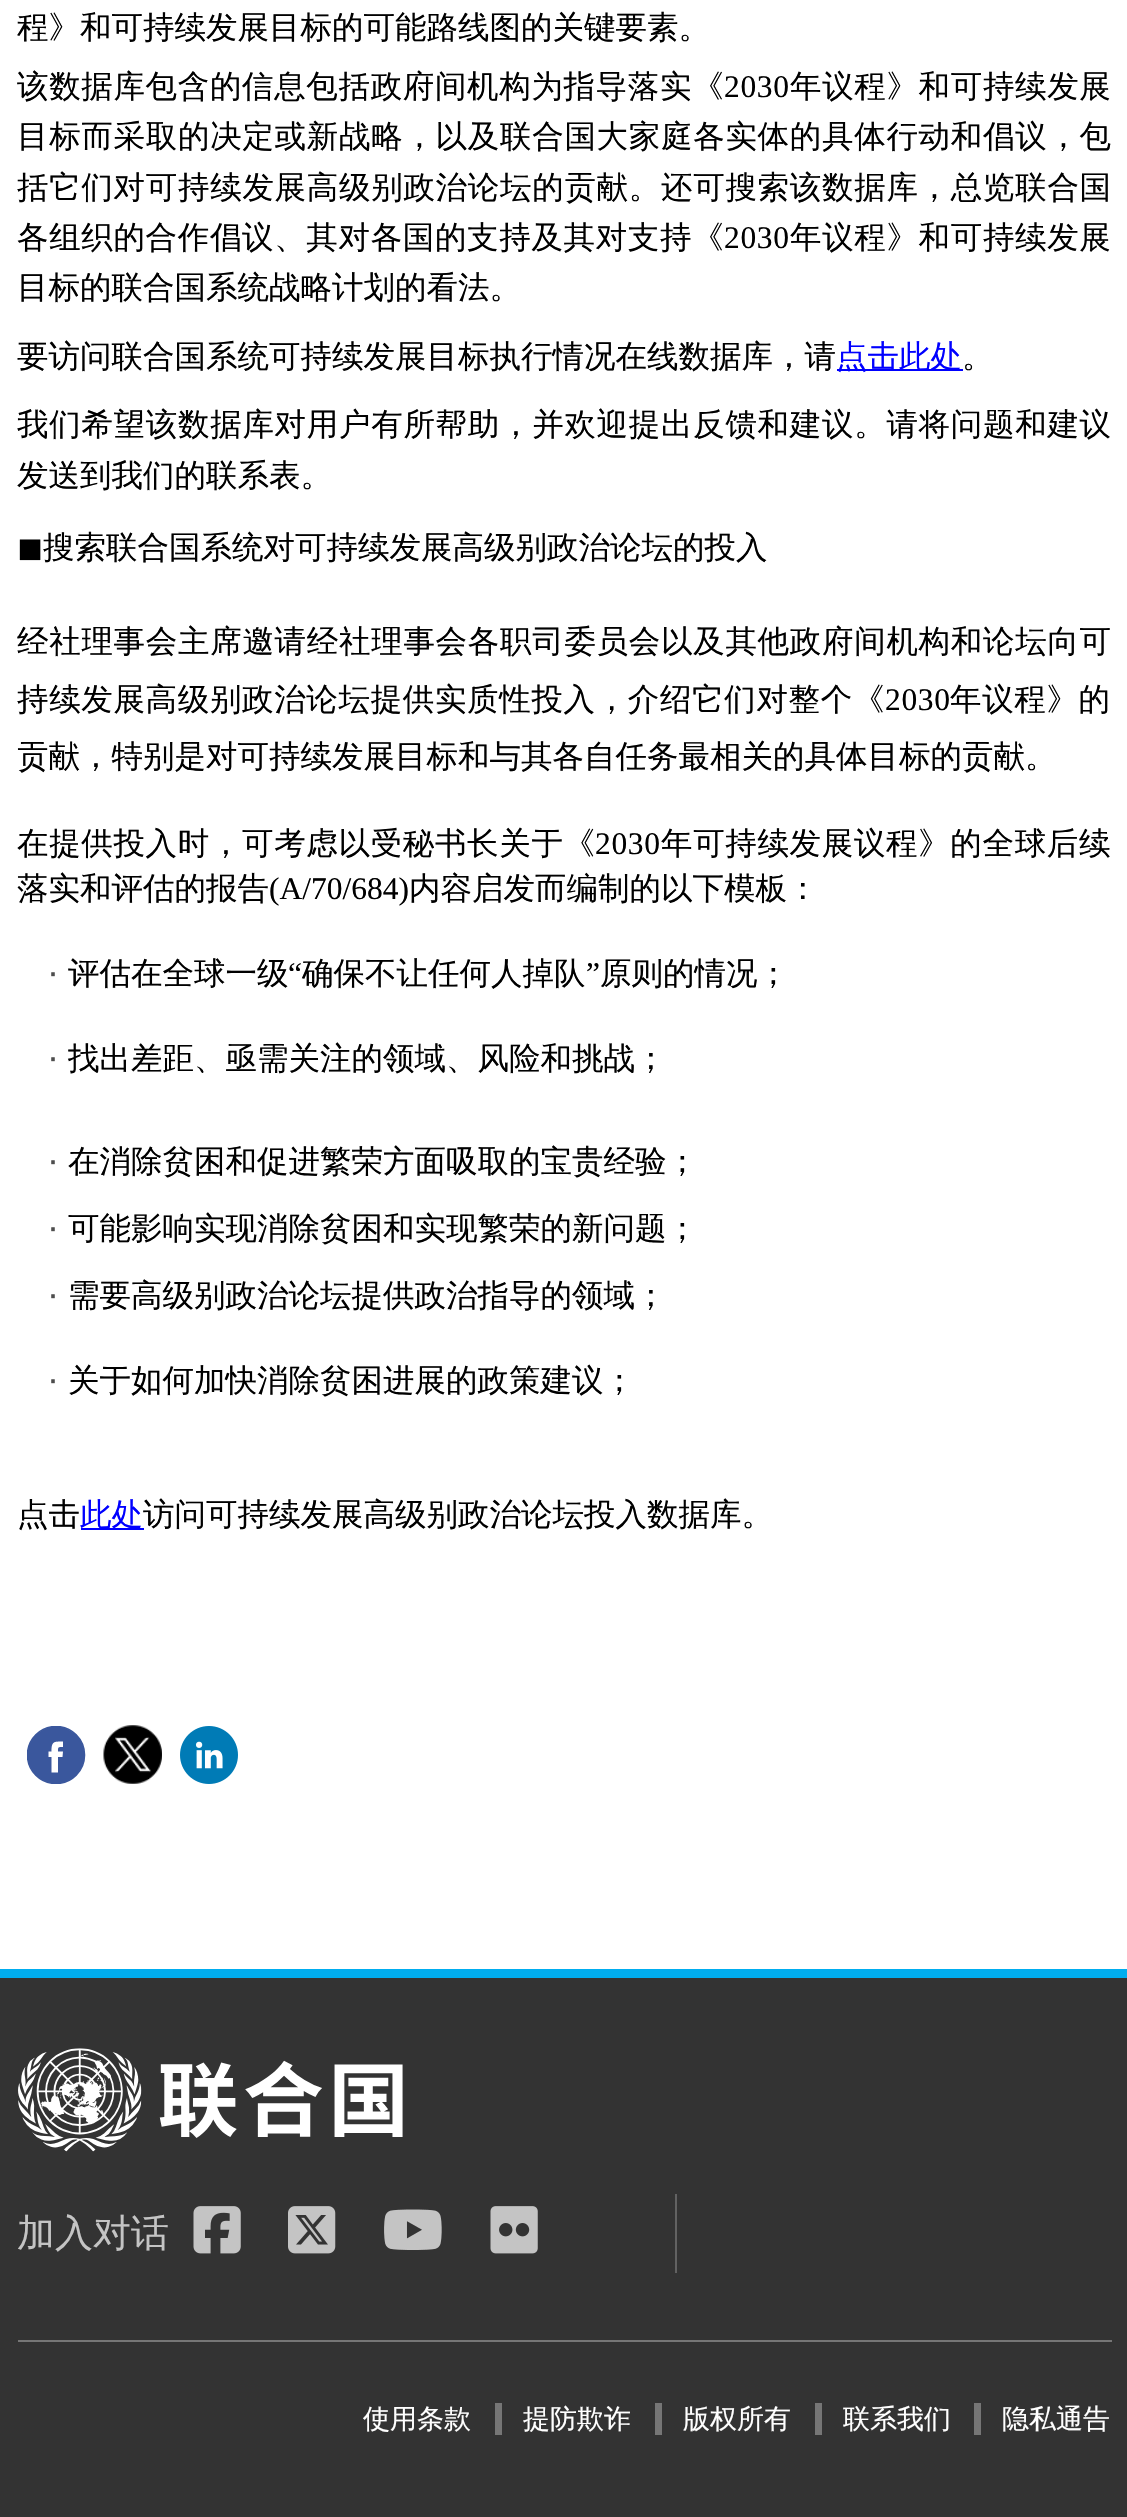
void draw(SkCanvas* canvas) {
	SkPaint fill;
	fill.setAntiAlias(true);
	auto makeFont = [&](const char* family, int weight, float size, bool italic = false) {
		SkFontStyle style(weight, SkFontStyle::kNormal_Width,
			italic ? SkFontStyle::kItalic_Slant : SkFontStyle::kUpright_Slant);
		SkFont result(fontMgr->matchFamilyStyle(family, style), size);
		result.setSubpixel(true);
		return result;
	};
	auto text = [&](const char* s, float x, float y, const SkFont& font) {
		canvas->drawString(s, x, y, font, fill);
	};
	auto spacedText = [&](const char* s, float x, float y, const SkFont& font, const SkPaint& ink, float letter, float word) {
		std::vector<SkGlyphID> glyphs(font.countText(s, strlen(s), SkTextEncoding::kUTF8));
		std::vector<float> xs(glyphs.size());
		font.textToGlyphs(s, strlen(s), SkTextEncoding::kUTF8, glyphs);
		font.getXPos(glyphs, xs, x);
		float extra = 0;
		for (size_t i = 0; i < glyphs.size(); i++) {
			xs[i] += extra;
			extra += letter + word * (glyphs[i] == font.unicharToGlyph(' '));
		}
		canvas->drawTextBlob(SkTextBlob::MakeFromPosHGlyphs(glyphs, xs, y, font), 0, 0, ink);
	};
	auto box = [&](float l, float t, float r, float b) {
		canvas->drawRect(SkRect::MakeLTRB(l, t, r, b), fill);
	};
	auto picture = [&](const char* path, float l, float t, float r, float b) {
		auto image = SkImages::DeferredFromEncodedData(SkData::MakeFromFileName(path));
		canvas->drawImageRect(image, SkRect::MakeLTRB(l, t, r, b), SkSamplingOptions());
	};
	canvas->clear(0xFFFFFFFF);
	fill.setColor(0xFF0000FF);
	box(837, 369, 963, 371);
	box(81, 1528, 144, 1530);
	fill.setColor(0xFF3A579D);
	canvas->drawCircle(56, 1755, 28.5f, fill);
	canvas->save();
	canvas->clipRect(SkRect::MakeLTRB(27, 1726, 86, 1784));
	fill.setStyle(SkPaint::kStroke_Style);
	fill.setStrokeWidth(1.6f);
	canvas->drawCircle(56, 1755, 28.5f, fill);
	canvas->restore();
	fill.setStyle(SkPaint::kFill_Style);
	fill.setColor(0xFFFFFFFF);
	canvas->drawPath(SkPathBuilder(SkPathFillType::kEvenOdd).moveTo(58, 1772.5f).lineTo(51.5f, 1772.5f).lineTo(51.5f, 1757).lineTo(48.5f, 1757).lineTo(48.5f, 1751.5f).lineTo(51.5f, 1751.5f).cubicTo(51.5f, 1741.5f, 53.5f, 1741.5f, 63, 1741.5f).lineTo(63, 1747).cubicTo(58, 1747, 58, 1747, 58, 1751.5f).lineTo(63, 1751.5f).lineTo(62.5f, 1757).lineTo(58, 1757).close().detach(), fill);
	picture("image0.png", 103, 1725, 162, 1784);
	picture("image1.png", 180, 1726, 238, 1784);
	fill.setColor(0xFF333333);
	box(0, 1978, 1127, 2517);
	fill.setColor(0xFF00ADEF);
	box(0, 1969, 1127, 1978);
	fill.setColor(0xFF767676);
	box(18, 2340, 1112, 2342);
	picture("image2.png", 18, 2048, 403, 2152);
	picture("image3.png", 193, 2206, 241, 2254);
	picture("image4.png", 288, 2206, 336, 2254);
	picture("image5.png", 384, 2209, 442, 2250);
	picture("image6.png", 490, 2206, 538, 2254);
	fill.setColor(0xFF626262);
	box(675, 2194, 677, 2273);
	fill.setColor(0xFF767676);
	box(495, 2403, 502, 2435);
	box(655, 2403, 662, 2435);
	box(815, 2403, 822, 2435);
	box(974, 2403, 981, 2435);
	auto font1 = makeFont("WenQuanYi Zen Hei", 500, 31.5f);
	fill.setColor(0xFF000000);
	text("程》和可持续发展目标的可能路线图的关键要素。", 17, 38, font1);
	spacedText("该数据库包含的信息包括政府间机构为指导落实《", 17, 97, font1, fill, 0.65f, 0);
	auto font2 = makeFont("Liberation Serif", 400, 31.5f);
	spacedText("2030", 724, 97, font2, fill, 0.65f, 0);
	spacedText("年议程》和可持续发展", 790, 97, font1, fill, 0.65f, 0);
	spacedText("目标而采取的决定或新战略，以及联合国大家庭各实体的具体行动和倡议，包", 17, 147, font1, fill, 0.7f, 0);
	spacedText("括它们对可持续发展高级别政治论坛的贡献。还可搜索该数据库，总览联合国", 17, 198, font1, fill, 0.7f, 0);
	spacedText("各组织的合作倡议、其对各国的支持及其对支持《", 17, 248, font1, fill, 0.65f, 0);
	spacedText("2030", 724, 248, font2, fill, 0.65f, 0);
	spacedText("年议程》和可持续发展", 790, 248, font1, fill, 0.65f, 0);
	text("目标的联合国系统战略计划的看法。", 17, 298, font1);
	text("要访问联合国系统可持续发展目标执行情况在线数据库，请", 17, 367, font1);
	fill.setColor(0xFF0000FF);
	text("点击此处", 836, 367, font1);
	fill.setColor(0xFF000000);
	text("。", 962, 367, font1);
	spacedText("我们希望该数据库对用户有所帮助，并欢迎提出反馈和建议。请将问题和建议", 17, 435, font1, fill, 0.7f, 0);
	text("发送到我们的联系表。", 17, 486, font1);
	auto font3 = makeFont("DejaVu Sans", 400, 31.5f);
	text("◼", 17, 558, font3);
	text("搜索联合国系统对可持续发展高级别政治论坛的投入", 43, 558, font1);
	spacedText("经社理事会主席邀请经社理事会各职司委员会以及其他政府间机构和论坛向可", 17, 652, font1, fill, 0.7f, 0);
	spacedText("持续发展高级别政治论坛提供实质性投入，介绍它们对整个《", 17, 710, font1, fill, 0.65f, 0);
	spacedText("2030", 885, 710, font2, fill, 0.65f, 0);
	spacedText("年议程》的", 950, 710, font1, fill, 0.65f, 0);
	text("贡献，特别是对可持续发展目标和与其各自任务最相关的具体目标的贡献。", 17, 767, font1);
	spacedText("在提供投入时，可考虑以受秘书长关于《", 17, 854, font1, fill, 0.65f, 0);
	spacedText("2030", 595, 854, font2, fill, 0.65f, 0);
	spacedText("年可持续发展议程》的全球后续", 661, 854, font1, fill, 0.65f, 0);
	text("落实和评估的报告", 17, 899, font1);
	text("(A/70/684)", 269, 899, font2);
	text("内容启发而编制的以下模板：", 409, 899, font1);
	text("评估在全球一级", 68, 984, font1);
	text("“", 288, 984, font2);
	text("确保不让任何人掉队", 302, 984, font1);
	text("”", 586, 984, font2);
	text("原则的情况；", 600, 984, font1);
	auto font4 = makeFont("Liberation Sans", 400, 36);
	fill.setColor(0xFF4D4D4D);
	text("∙", 48, 984, font4);
	text("∙", 48, 1069, font4);
	fill.setColor(0xFF000000);
	text("找出差距、亟需关注的领域、风险和挑战；", 68, 1069, font1);
	fill.setColor(0xFF4D4D4D);
	text("∙", 48, 1172, font4);
	fill.setColor(0xFF000000);
	text("在消除贫困和促进繁荣方面吸取的宝贵经验；", 68, 1172, font1);
	fill.setColor(0xFF4D4D4D);
	text("∙", 48, 1239, font4);
	fill.setColor(0xFF000000);
	text("可能影响实现消除贫困和实现繁荣的新问题；", 68, 1239, font1);
	fill.setColor(0xFF4D4D4D);
	text("∙", 48, 1306, font4);
	fill.setColor(0xFF000000);
	text("需要高级别政治论坛提供政治指导的领域；", 68, 1306, font1);
	fill.setColor(0xFF4D4D4D);
	text("∙", 48, 1391, font4);
	fill.setColor(0xFF000000);
	text("关于如何加快消除贫困进展的政策建议；", 68, 1391, font1);
	text("点击", 17, 1525, font1);
	fill.setColor(0xFF0000FF);
	text("此处", 80, 1525, font1);
	fill.setColor(0xFF000000);
	text("访问可持续发展高级别政治论坛投入数据库。", 143, 1525, font1);
	auto font5 = makeFont("WenQuanYi Zen Hei", 500, 38);
	fill.setColor(0xFFC4C4C4);
	text("加入对话", 17, 2246, font5);
	auto font6 = makeFont("WenQuanYi Zen Hei", 500, 27);
	fill.setColor(0xFFFFFFFF);
	text("使用条款", 363, 2428, font6);
	text("提防欺诈", 523, 2428, font6);
	text("版权所有", 683, 2428, font6);
	text("联系我们", 843, 2428, font6);
	text("隐私通告", 1002, 2428, font6);
}
